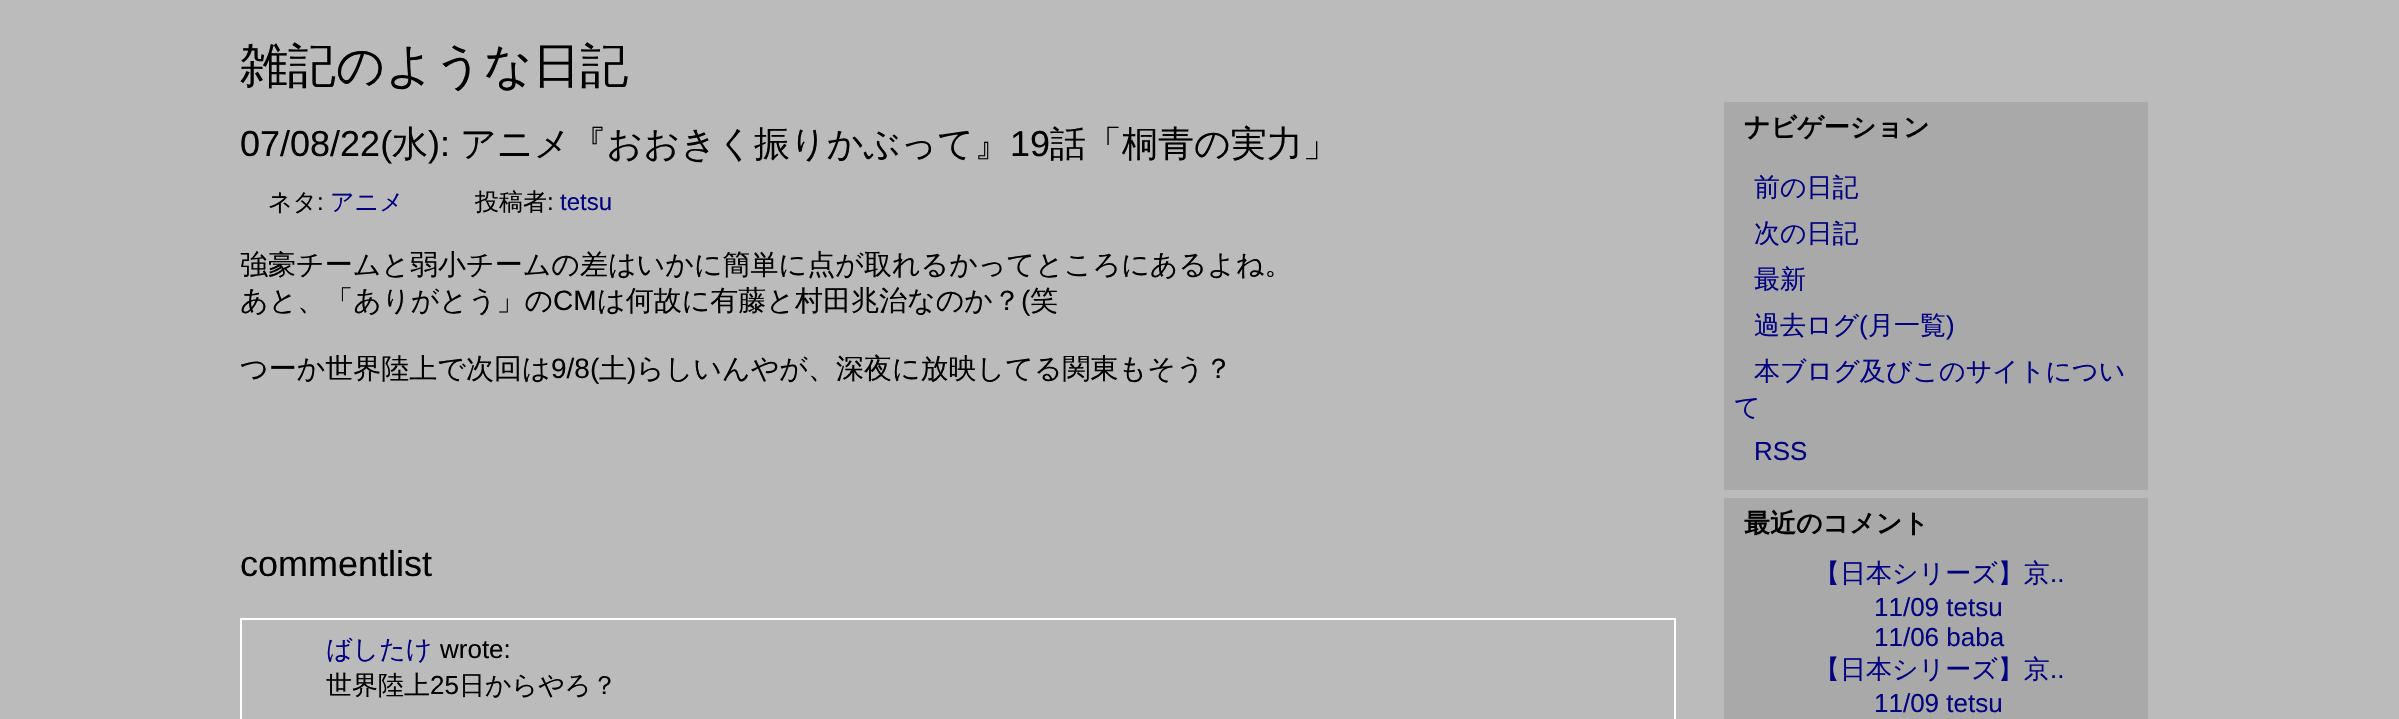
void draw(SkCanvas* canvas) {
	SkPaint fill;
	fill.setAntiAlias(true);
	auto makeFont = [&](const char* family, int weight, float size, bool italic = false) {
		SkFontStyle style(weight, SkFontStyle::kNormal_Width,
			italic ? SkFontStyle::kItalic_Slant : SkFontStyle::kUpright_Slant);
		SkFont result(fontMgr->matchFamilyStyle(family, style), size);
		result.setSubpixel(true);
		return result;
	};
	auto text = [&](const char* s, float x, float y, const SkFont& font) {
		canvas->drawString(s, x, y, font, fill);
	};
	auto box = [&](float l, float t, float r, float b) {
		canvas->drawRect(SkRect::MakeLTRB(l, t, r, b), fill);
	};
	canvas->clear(0xFFBBBBBB);
	fill.setStyle(SkPaint::kStroke_Style);
	fill.setStrokeWidth(2);
	fill.setColor(0xFFFFFFFF);
	canvas->drawRect(SkRect::MakeLTRB(241, 619, 1675, 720), fill);
	fill.setStyle(SkPaint::kFill_Style);
	fill.setColor(0xFFA9A9A9);
	box(1724, 102, 2148, 490);
	box(1724, 498, 2148, 719);
	auto font1 = makeFont("WenQuanYi Zen Hei", 500, 48);
	fill.setColor(0xFF000000);
	text("雑記のような日記", 240, 82, font1);
	auto font2 = makeFont("Liberation Sans", 400, 36);
	text("07/08/22(", 240, 156, font2);
	auto font3 = makeFont("WenQuanYi Zen Hei", 500, 36);
	text("水", 392, 156, font3);
	text("):", 428, 156, font2);
	text("アニメ『おおきく振りかぶって』", 460, 156, font3);
	text("19", 1010, 156, font2);
	text("話「桐青の実力」", 1050, 156, font3);
	auto font4 = makeFont("WenQuanYi Zen Hei", 500, 24);
	text("ネタ", 268, 210, font4);
	auto font5 = makeFont("Liberation Sans", 400, 24);
	text(":", 317, 210, font5);
	fill.setColor(0xFF000080);
	text("アニメ", 330, 210, font4);
	fill.setColor(0xFF000000);
	text("投稿者", 475, 210, font4);
	text(":", 547, 210, font5);
	fill.setColor(0xFF000080);
	text("tetsu", 560, 210, font5);
	auto font6 = makeFont("WenQuanYi Zen Hei", 500, 28);
	fill.setColor(0xFF000000);
	text("強豪チームと弱小チームの差はいかに簡単に点が取れるかってところにあるよね。", 240, 274, font6);
	text("あと、「ありがとう」の", 240, 310, font6);
	auto font7 = makeFont("Liberation Sans", 400, 28);
	text("CM", 553, 310, font7);
	text("は何故に有藤と村田兆治なのか？", 597, 310, font6);
	text("(", 1021, 310, font7);
	text("笑", 1030, 310, font6);
	text("つーか世界陸上で次回は", 240, 378, font6);
	text("9/8(", 551, 378, font7);
	text("土", 599, 378, font6);
	text(")", 627, 378, font7);
	text("らしいんやが、深夜に放映してる関東もそう？", 636, 378, font6);
	text("commentlist", 240, 576, font2);
	auto font8 = makeFont("WenQuanYi Zen Hei", 500, 26);
	fill.setColor(0xFF000080);
	text("ばしたけ", 326, 658, font8);
	auto font9 = makeFont("Liberation Sans", 400, 26);
	fill.setColor(0xFF000000);
	text("wrote:", 440, 658, font9);
	text("世界陸上", 326, 694, font8);
	text("25", 430, 694, font9);
	text("日からやろ？", 459, 694, font8);
	auto font10 = makeFont("WenQuanYi Zen Hei", 700, 26);
	text("ナビゲーション", 1744, 136, font10);
	fill.setColor(0xFF000080);
	text("前の日記", 1754, 196, font8);
	text("次の日記", 1754, 242, font8);
	text("最新", 1754, 288, font8);
	text("過去ログ", 1754, 334, font8);
	text("(", 1859, 334, font9);
	text("月一覧", 1868, 334, font8);
	text(")", 1946, 334, font9);
	text("本ブログ及びこのサイトについ", 1754, 380, font8);
	text("て", 1734, 416, font8);
	text("RSS", 1754, 460, font9);
	fill.setColor(0xFF000000);
	text("最近のコメント", 1744, 532, font10);
	fill.setColor(0xFF000080);
	text("【日本シリーズ】京", 1814, 582, font8);
	text("..", 2050, 582, font9);
	text("11/09 tetsu", 1874, 616, font9);
	text("11/06 baba", 1874, 646, font9);
	text("【日本シリーズ】京", 1814, 678, font8);
	text("..", 2050, 678, font9);
	text("11/09 tetsu", 1874, 712, font9);
}
